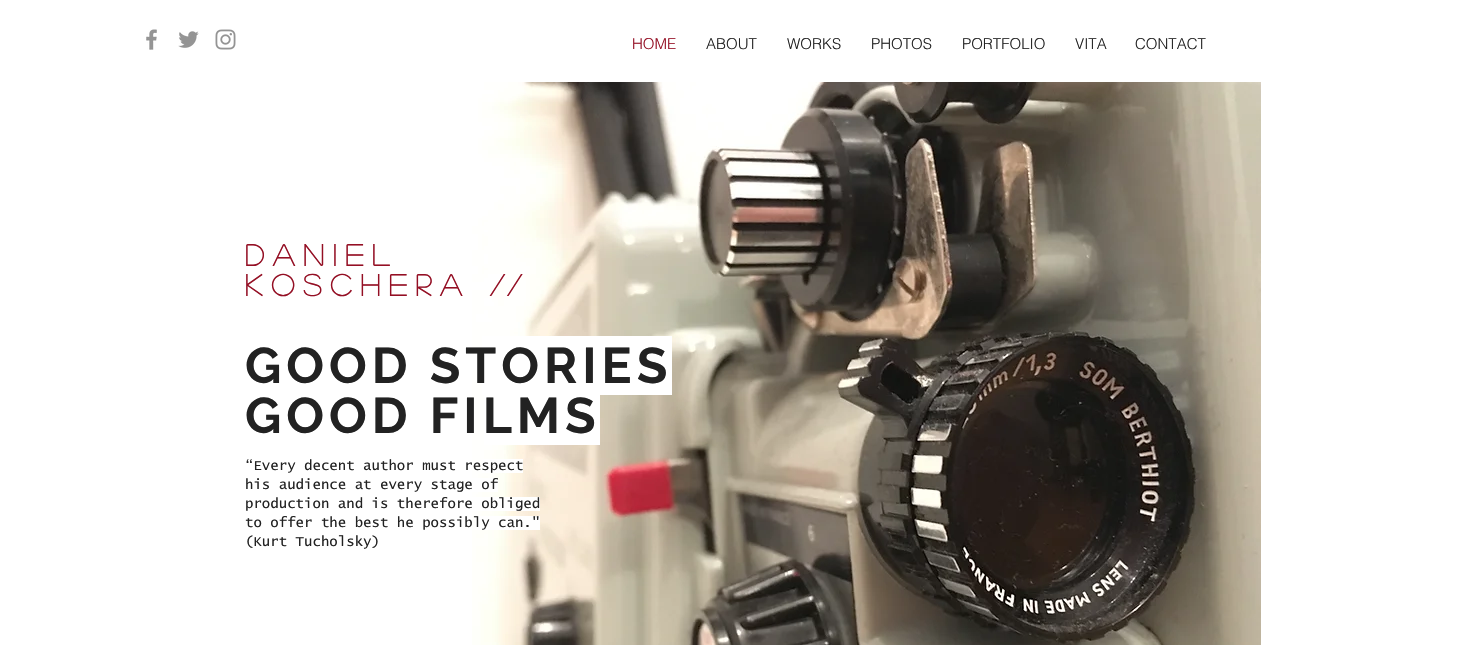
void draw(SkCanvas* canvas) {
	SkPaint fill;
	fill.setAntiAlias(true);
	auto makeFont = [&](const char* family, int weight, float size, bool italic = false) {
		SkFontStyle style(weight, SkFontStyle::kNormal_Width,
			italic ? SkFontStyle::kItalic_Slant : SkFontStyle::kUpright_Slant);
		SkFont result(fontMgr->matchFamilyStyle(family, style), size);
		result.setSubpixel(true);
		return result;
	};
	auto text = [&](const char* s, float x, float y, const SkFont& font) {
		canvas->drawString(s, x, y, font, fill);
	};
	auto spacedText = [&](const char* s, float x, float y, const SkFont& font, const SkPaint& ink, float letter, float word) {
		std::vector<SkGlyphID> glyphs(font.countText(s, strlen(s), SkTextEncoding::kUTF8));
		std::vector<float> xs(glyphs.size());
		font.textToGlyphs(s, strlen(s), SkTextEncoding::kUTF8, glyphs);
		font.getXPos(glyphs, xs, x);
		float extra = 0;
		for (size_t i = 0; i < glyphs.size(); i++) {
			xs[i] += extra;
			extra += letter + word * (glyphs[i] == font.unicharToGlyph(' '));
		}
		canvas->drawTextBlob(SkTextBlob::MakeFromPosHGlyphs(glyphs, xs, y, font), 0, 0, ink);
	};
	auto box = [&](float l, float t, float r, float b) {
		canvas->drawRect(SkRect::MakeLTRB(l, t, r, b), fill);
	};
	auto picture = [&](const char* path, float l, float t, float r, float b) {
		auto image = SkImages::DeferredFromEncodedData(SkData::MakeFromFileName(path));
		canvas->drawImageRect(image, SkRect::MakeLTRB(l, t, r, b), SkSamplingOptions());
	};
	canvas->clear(0xFFFFFFFF);
	picture("image0.png", 146, 29, 157, 50);
	picture("image1.png", 178, 31, 199, 48);
	picture("image2.png", 215, 29, 236, 50);
	picture("image3.png", 472, 82, 1261, 645);
	fill.setColor(0xFFFFFFFF);
	box(482, 336, 672, 395);
	box(484, 395, 600, 445);
	box(482, 459, 523, 473);
	box(472, 478, 498, 492);
	box(472, 497, 540, 511);
	box(476, 516, 540, 530);
	auto font1 = makeFont("helvetica", 300, 15);
	fill.setColor(0xFF940F24);
	text("HOME", 632, 49, font1);
	fill.setColor(0xFF222222);
	text("ABOUT", 706, 49, font1);
	text("WORKS", 787, 49, font1);
	text("PHOTOS", 871, 49, font1);
	text("PORTFOLIO", 962, 49, font1);
	text("VITA", 1075, 49, font1);
	text("CONTACT", 1135, 49, font1);
	auto font2 = makeFont("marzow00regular", 700, 30);
	fill.setColor(0xFF940F24);
	spacedText("DANIEL", 245, 266, font2, fill, 9, 0);
	spacedText("KOSCHERA", 245, 296, font2, fill, 9, 0);
	spacedText("//", 490, 296, font2, fill, 3, 0);
	auto font3 = makeFont("Raleway", 700, 50);
	fill.setColor(0xFF222222);
	spacedText("GOOD STORIES", 245, 383, font3, fill, 5, 0);
	spacedText("GOOD FILMS", 245, 433, font3, fill, 5, 0);
	auto font4 = makeFont("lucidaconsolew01", 400, 14);
	text("“Every decent author must respect", 245, 470, font4);
	text("his audience at every stage of", 245, 489, font4);
	text("production and is therefore obliged", 245, 508, font4);
	text("to offer the best he possibly can.\"", 245, 527, font4);
	text("(Kurt Tucholsky)", 245, 546, font4);
}
